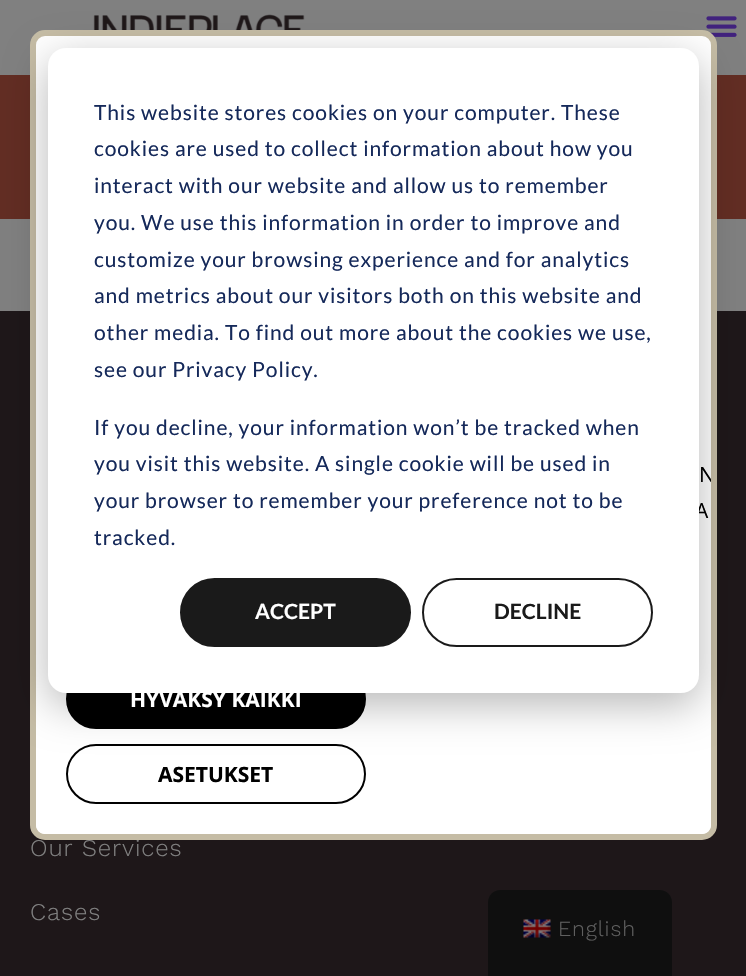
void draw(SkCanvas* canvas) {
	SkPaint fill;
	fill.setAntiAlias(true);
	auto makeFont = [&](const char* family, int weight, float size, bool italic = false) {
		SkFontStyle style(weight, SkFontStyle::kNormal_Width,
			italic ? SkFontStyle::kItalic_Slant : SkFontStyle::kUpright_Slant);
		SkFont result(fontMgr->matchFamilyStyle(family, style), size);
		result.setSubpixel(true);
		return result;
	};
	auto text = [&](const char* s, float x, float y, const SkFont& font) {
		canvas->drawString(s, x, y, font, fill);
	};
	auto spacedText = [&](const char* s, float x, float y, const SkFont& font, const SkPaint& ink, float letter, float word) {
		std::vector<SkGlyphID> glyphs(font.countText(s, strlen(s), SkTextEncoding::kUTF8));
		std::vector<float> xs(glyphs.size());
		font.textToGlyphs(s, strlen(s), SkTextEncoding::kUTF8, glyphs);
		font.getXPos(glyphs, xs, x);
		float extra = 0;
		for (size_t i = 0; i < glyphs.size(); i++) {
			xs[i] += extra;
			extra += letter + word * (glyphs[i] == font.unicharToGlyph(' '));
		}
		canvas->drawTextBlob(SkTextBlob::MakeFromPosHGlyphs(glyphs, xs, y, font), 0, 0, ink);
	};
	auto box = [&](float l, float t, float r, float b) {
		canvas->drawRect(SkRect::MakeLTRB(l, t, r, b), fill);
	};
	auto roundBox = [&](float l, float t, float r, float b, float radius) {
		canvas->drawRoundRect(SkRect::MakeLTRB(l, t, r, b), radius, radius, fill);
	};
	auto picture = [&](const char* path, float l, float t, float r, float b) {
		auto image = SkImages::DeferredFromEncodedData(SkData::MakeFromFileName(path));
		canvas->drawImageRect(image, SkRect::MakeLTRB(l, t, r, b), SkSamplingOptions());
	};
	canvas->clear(0xFF808080);
	picture("image0.png", 93, 14, 305, 30);
	picture("image1.png", 706, 16, 737, 37);
	fill.setColor(0xFF622D23);
	box(0, 75, 746, 219);
	fill.setColor(0xFF1E1719);
	box(0, 311, 746, 976);
	fill.setColor(0xFF0F0F0F);
	canvas->drawPath(SkPathBuilder().moveTo(500, 890).lineTo(660, 890).cubicTo(666.5f, 890, 672, 895.5f, 672, 902).lineTo(672, 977).lineTo(488, 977).lineTo(488, 902).cubicTo(488, 895.5f, 493.5f, 890, 500, 890).close().detach(), fill);
	picture("image2.png", 523, 919, 551, 938);
	auto font1 = makeFont("Work Sans", 300, 24);
	fill.setColor(0xFF808080);
	spacedText("Our Services", 30, 856, font1, fill, 0.9f, 0);
	fill.setColor(0xFFFFFFFF);
	canvas->drawRoundRect(SkRect::MakeLTRB(33, 33, 714, 837), 12, 12, fill);
	fill.setStyle(SkPaint::kStroke_Style);
	fill.setStrokeWidth(6);
	fill.setColor(0xFFC5BCA5);
	canvas->drawRoundRect(SkRect::MakeLTRB(33, 33, 714, 837), 12, 12, fill);
	fill.setStyle(SkPaint::kFill_Style);
	{
		const SkColor colors[] = {0x00FFFFFF, 0xFFFFFFFF};
		const float stops[] = {0, 0.07f};
		const SkPoint ends[] = {{374, 624}, {374, 834}};
		fill.setShader(SkGradientShader::MakeLinear(ends, colors, stops, 2, SkTileMode::kClamp));
		fill.setAlpha(255);
	}
	canvas->drawPath(SkPathBuilder().moveTo(36, 624).lineTo(711, 624).lineTo(711, 825).cubicTo(711, 830, 707, 834, 702, 834).lineTo(45, 834).cubicTo(40, 834, 36, 830, 36, 825).close().detach(), fill);
	fill.setShader(nullptr);
	fill.setColor(0xFF000000);
	canvas->drawRoundRect(SkRect::MakeLTRB(67, 670, 365, 728), 29, 29, fill);
	fill.setStyle(SkPaint::kStroke_Style);
	fill.setStrokeWidth(2);
	canvas->drawRoundRect(SkRect::MakeLTRB(67, 670, 365, 728), 29, 29, fill);
	canvas->drawRoundRect(SkRect::MakeLTRB(67, 745, 365, 803), 29, 29, fill);
	fill.setStyle(SkPaint::kFill_Style);
	fill.setColor(0x47000000);
	fill.setMaskFilter(SkMaskFilter::MakeBlur(kNormal_SkBlurStyle, 21));
	canvas->drawRoundRect(SkRect::MakeLTRB(48, 60, 699, 705), 18, 18, fill);
	fill.setMaskFilter(nullptr);
	auto font2 = makeFont("Open Sans", 400, 21);
	fill.setColor(0xFF000000);
	text("A", 695, 518, font2);
	fill.setColor(0xFFFFFFFF);
	roundBox(48, 48, 699, 693, 18);
	fill.setStyle(SkPaint::kStroke_Style);
	fill.setColor(0xFF1A1A1A);
	canvas->drawRoundRect(SkRect::MakeLTRB(423, 579, 652, 646), 33.5f, 33.5f, fill);
	auto font3 = makeFont("Lato", 700, 21);
	fill.setStyle(SkPaint::kFill_Style);
	text("DECLINE", 494, 619, font3);
	canvas->drawRoundRect(SkRect::MakeLTRB(181, 579, 410, 646), 33.5f, 33.5f, fill);
	fill.setStyle(SkPaint::kStroke_Style);
	canvas->drawRoundRect(SkRect::MakeLTRB(181, 579, 410, 646), 33.5f, 33.5f, fill);
	fill.setStyle(SkPaint::kFill_Style);
	fill.setColor(0xFFFFFFFF);
	text("ACCEPT", 255, 619, font3);
	auto font4 = makeFont("Lato", 400, 21);
	fill.setColor(0xFF15295A);
	spacedText("tracked.", 94, 545, font4, fill, 0.9f, 0);
	spacedText("your browser to remember your preference not to be", 94, 508, font4, fill, 0.9f, 0);
	spacedText("you visit this website. A single cookie will be used in", 94, 471, font4, fill, 0.9f, 0);
	spacedText("If you decline, your information won’t be tracked when", 94, 435, font4, fill, 0.9f, 0);
	spacedText("see our Privacy Policy.", 94, 377, font4, fill, 0.9f, 0);
	spacedText("other media. To find out more about the cookies we use,", 94, 340, font4, fill, 0.9f, 0);
	spacedText("and metrics about our visitors both on this website and", 94, 303, font4, fill, 0.9f, 0);
	spacedText("customize your browsing experience and for analytics", 94, 267, font4, fill, 0.9f, 0);
	spacedText("you. We use this information in order to improve and", 94, 230, font4, fill, 0.9f, 0);
	spacedText("interact with our website and allow us to remember", 94, 193, font4, fill, 0.9f, 0);
	spacedText("cookies are used to collect information about how you", 94, 156, font4, fill, 0.9f, 0);
	spacedText("This website stores cookies on your computer. These", 94, 120, font4, fill, 0.9f, 0);
	auto font5 = makeFont("Open Sans", 700, 21);
	fill.setColor(0xFFFFFFFF);
	text("HYVÄKSY KAIKKI", 130, 707, font5);
	fill.setColor(0xFF000000);
	text("ASETUKSET", 158, 782, font5);
	canvas->save();
	canvas->clipPath(SkPathBuilder().moveTo(45, 36).lineTo(702, 36).cubicTo(707, 36, 711, 40, 711, 45).lineTo(711, 825).cubicTo(711, 830, 707, 834, 702, 834).lineTo(45, 834).cubicTo(40, 834, 36, 830, 36, 825).lineTo(36, 45).cubicTo(36, 40, 40, 36, 45, 36).close().detach(), true);
	text("N", 699, 482, font2);
	canvas->restore();
	fill.setColor(0xFF808080);
	spacedText("Cases", 30, 920, font1, fill, 0.9f, 0);
	auto font6 = makeFont("Work Sans", 300, 21.5f);
	fill.setColor(0xFF5F5F5F);
	spacedText("English", 558, 936, font6, fill, 0.9f, 0);
}
